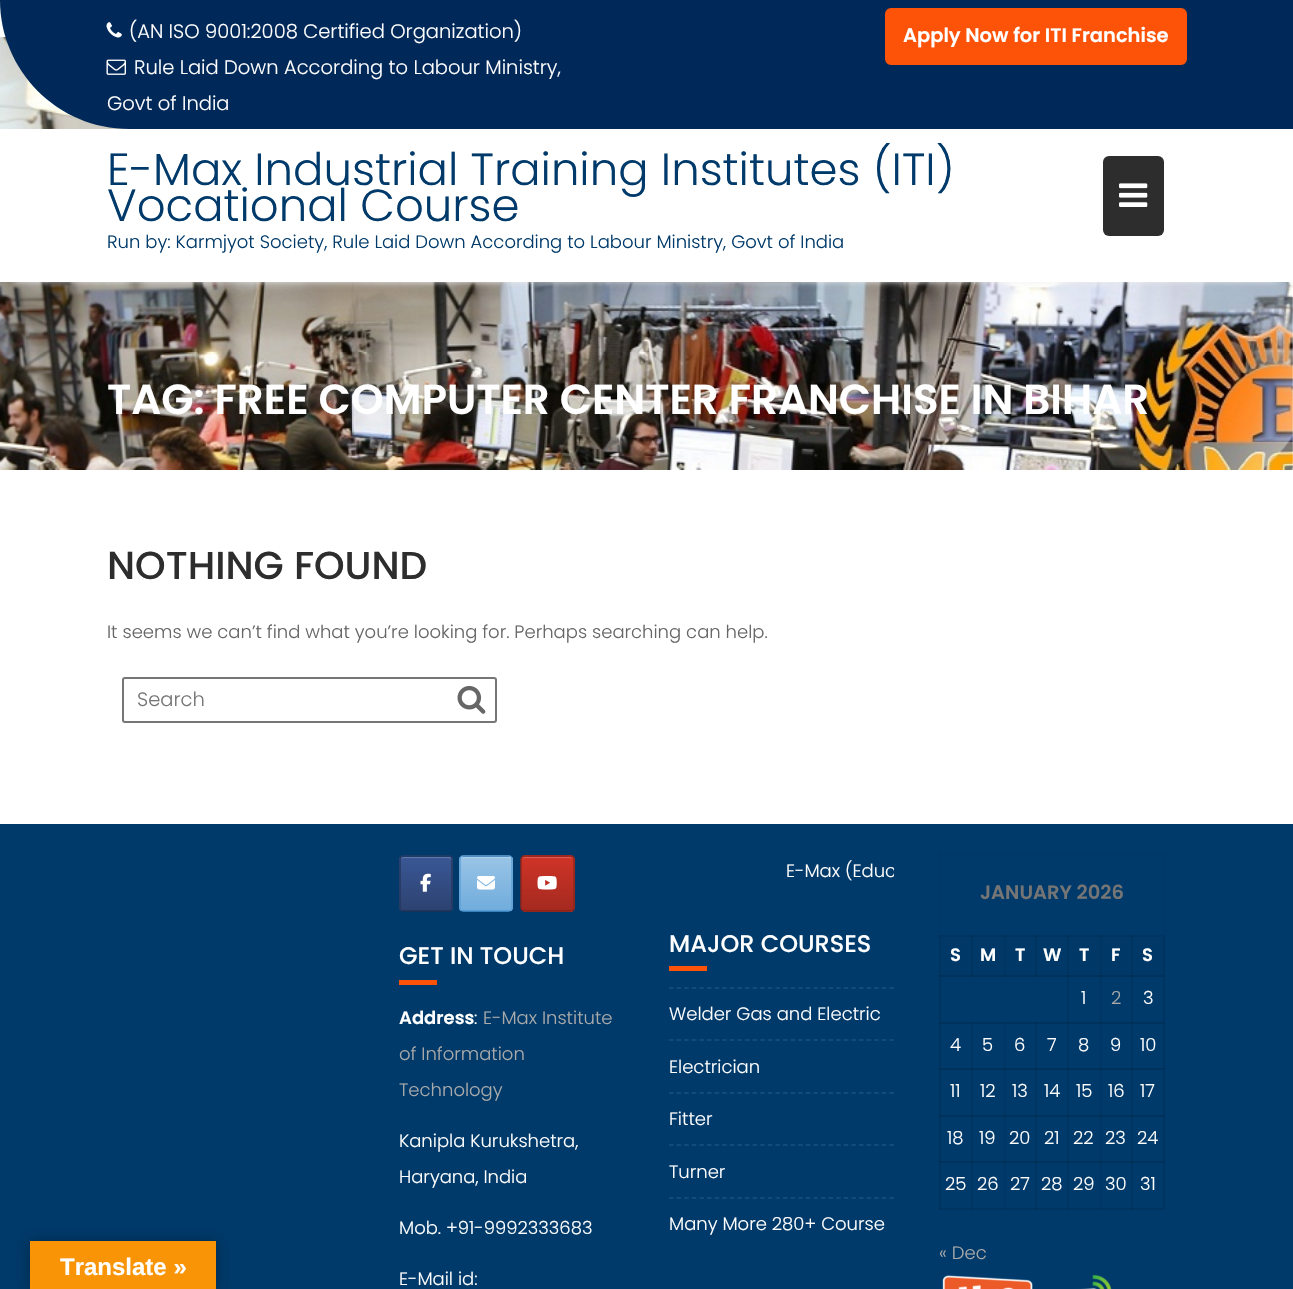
void draw(SkCanvas* canvas) {
	SkPaint fill;
	fill.setAntiAlias(true);
	auto makeFont = [&](const char* family, int weight, float size, bool italic = false) {
		SkFontStyle style(weight, SkFontStyle::kNormal_Width,
			italic ? SkFontStyle::kItalic_Slant : SkFontStyle::kUpright_Slant);
		SkFont result(fontMgr->matchFamilyStyle(family, style), size);
		result.setSubpixel(true);
		return result;
	};
	auto text = [&](const char* s, float x, float y, const SkFont& font) {
		canvas->drawString(s, x, y, font, fill);
	};
	auto box = [&](float l, float t, float r, float b) {
		canvas->drawRect(SkRect::MakeLTRB(l, t, r, b), fill);
	};
	auto roundBox = [&](float l, float t, float r, float b, float radius) {
		canvas->drawRoundRect(SkRect::MakeLTRB(l, t, r, b), radius, radius, fill);
	};
	auto picture = [&](const char* path, float l, float t, float r, float b) {
		auto image = SkImages::DeferredFromEncodedData(SkData::MakeFromFileName(path));
		canvas->drawImageRect(image, SkRect::MakeLTRB(l, t, r, b), SkSamplingOptions());
	};
	canvas->clear(0xFFFFFFFF);
	picture("image3.png", 0, 37, 1293, 470);
	fill.setColor(0xFF002858);
	canvas->drawPath(SkPathBuilder().moveTo(0, 0).lineTo(1293, 0).lineTo(1293, 129).lineTo(129, 129).cubicTo(58, 129, 0, 71, 0, 0).close().detach(), fill);
	picture("image0.png", 106, 22, 122, 38);
	picture("image1.png", 106, 59, 126, 75);
	fill.setColor(0xFFFD5308);
	canvas->drawRoundRect(SkRect::MakeLTRB(886.5f, 9.5f, 1185.5f, 63.5f), 4.5f, 4.5f, fill);
	fill.setStyle(SkPaint::kStroke_Style);
	fill.setStrokeWidth(3);
	canvas->drawRoundRect(SkRect::MakeLTRB(886.5f, 9.5f, 1185.5f, 63.5f), 4.5f, 4.5f, fill);
	fill.setStyle(SkPaint::kFill_Style);
	fill.setColor(0xE6EEEEEE);
	fill.setMaskFilter(SkMaskFilter::MakeBlur(kNormal_SkBlurStyle, 3));
	canvas->drawRect(SkRect::MakeLTRB(15, 159, 1278, 282), fill);
	fill.setMaskFilter(nullptr);
	fill.setColor(0xFFFFFFFF);
	box(0, 129, 1293, 282);
	fill.setColor(0xFF2D2D2D);
	roundBox(1103, 156, 1164, 236, 6);
	picture("image2.png", 1119, 183, 1148, 207);
	fill.setStyle(SkPaint::kStroke_Style);
	fill.setStrokeWidth(2);
	fill.setColor(0xFF767676);
	canvas->drawRoundRect(SkRect::MakeLTRB(123, 678, 496, 722), 2, 2, fill);
	picture("image4.png", 457, 685, 486, 714);
	fill.setStyle(SkPaint::kFill_Style);
	fill.setColor(0xFF003A6A);
	box(0, 824, 1293, 1289);
	fill.setColor(0xFF003664);
	box(1067, 975, 1069, 1209);
	box(1100, 975, 1102, 1209);
	box(1131, 975, 1133, 1209);
	box(971, 1022, 973, 1209);
	box(1004, 1022, 1006, 1209);
	box(1035, 1022, 1037, 1209);
	fill.setColor(0xFF00325E);
	box(939, 975, 1164, 977);
	fill.setColor(0xFF003058);
	box(971, 975, 973, 977);
	fill.setColor(0xFF002F55);
	box(971, 975, 972, 977);
	fill.setColor(0xFF003058);
	box(1004, 975, 1006, 977);
	fill.setColor(0xFF002F55);
	box(1004, 975, 1005, 977);
	box(1035, 975, 1037, 977);
	fill.setColor(0xFF002E52);
	box(1067, 975, 1069, 977);
	fill.setColor(0xFF002C4E);
	box(1067, 975, 1068, 977);
	fill.setColor(0xFF002E52);
	box(1100, 975, 1102, 977);
	fill.setColor(0xFF002C4E);
	box(1100, 975, 1101, 977);
	box(1131, 975, 1133, 977);
	fill.setColor(0xFF00325E);
	box(939, 1022, 1164, 1024);
	fill.setColor(0xFF003058);
	box(971, 1022, 973, 1024);
	fill.setColor(0xFF002F55);
	box(971, 1022, 972, 1024);
	fill.setColor(0xFF003058);
	box(1004, 1022, 1006, 1024);
	fill.setColor(0xFF002F55);
	box(1004, 1022, 1005, 1024);
	box(1035, 1022, 1037, 1024);
	fill.setColor(0xFF003058);
	box(1067, 1023, 1069, 1024);
	fill.setColor(0xFF002E52);
	box(1067, 1022, 1069, 1023);
	box(1067, 1022, 1068, 1024);
	fill.setColor(0xFF002C4E);
	box(1067, 1022, 1068, 1023);
	fill.setColor(0xFF003058);
	box(1100, 1023, 1102, 1024);
	fill.setColor(0xFF002E52);
	box(1100, 1022, 1102, 1023);
	box(1100, 1022, 1101, 1024);
	fill.setColor(0xFF002C4E);
	box(1100, 1022, 1101, 1023);
	fill.setColor(0xFF002E52);
	box(1131, 1023, 1133, 1024);
	fill.setColor(0xFF002C4E);
	box(1131, 1022, 1133, 1023);
	fill.setColor(0xFF00325E);
	box(939, 1068, 1164, 1070);
	fill.setColor(0xFF002E52);
	box(971, 1068, 973, 1070);
	fill.setColor(0xFF002C4E);
	box(971, 1068, 972, 1070);
	fill.setColor(0xFF002E52);
	box(1004, 1068, 1006, 1070);
	fill.setColor(0xFF002C4E);
	box(1004, 1068, 1005, 1070);
	box(1035, 1068, 1037, 1070);
	fill.setColor(0xFF002E52);
	box(1067, 1068, 1069, 1070);
	fill.setColor(0xFF002C4E);
	box(1067, 1068, 1068, 1070);
	fill.setColor(0xFF002E52);
	box(1100, 1068, 1102, 1070);
	fill.setColor(0xFF002C4E);
	box(1100, 1068, 1101, 1070);
	box(1131, 1068, 1133, 1070);
	fill.setColor(0xFF00325E);
	box(939, 1115, 1164, 1117);
	fill.setColor(0xFF003058);
	box(971, 1116, 973, 1117);
	fill.setColor(0xFF002E52);
	box(971, 1115, 973, 1116);
	box(971, 1115, 972, 1117);
	fill.setColor(0xFF002C4E);
	box(971, 1115, 972, 1116);
	fill.setColor(0xFF003058);
	box(1004, 1116, 1006, 1117);
	fill.setColor(0xFF002E52);
	box(1004, 1115, 1006, 1116);
	box(1004, 1115, 1005, 1117);
	fill.setColor(0xFF002C4E);
	box(1004, 1115, 1005, 1116);
	fill.setColor(0xFF002E52);
	box(1035, 1116, 1037, 1117);
	fill.setColor(0xFF002C4E);
	box(1035, 1115, 1037, 1116);
	fill.setColor(0xFF003058);
	box(1067, 1116, 1069, 1117);
	fill.setColor(0xFF002E52);
	box(1067, 1115, 1069, 1116);
	box(1067, 1115, 1068, 1117);
	fill.setColor(0xFF002C4E);
	box(1067, 1115, 1068, 1116);
	fill.setColor(0xFF003058);
	box(1100, 1116, 1102, 1117);
	fill.setColor(0xFF002E52);
	box(1100, 1115, 1102, 1116);
	box(1100, 1115, 1101, 1117);
	fill.setColor(0xFF002C4E);
	box(1100, 1115, 1101, 1116);
	fill.setColor(0xFF002E52);
	box(1131, 1116, 1133, 1117);
	fill.setColor(0xFF002C4E);
	box(1131, 1115, 1133, 1116);
	fill.setColor(0xFF00325E);
	box(939, 1161, 1164, 1163);
	fill.setColor(0xFF002E52);
	box(971, 1161, 973, 1163);
	fill.setColor(0xFF002C4E);
	box(971, 1161, 972, 1163);
	fill.setColor(0xFF002E52);
	box(1004, 1161, 1006, 1163);
	fill.setColor(0xFF002C4E);
	box(1004, 1161, 1005, 1163);
	box(1035, 1161, 1037, 1163);
	fill.setColor(0xFF002E52);
	box(1067, 1161, 1069, 1163);
	fill.setColor(0xFF002C4E);
	box(1067, 1161, 1068, 1163);
	fill.setColor(0xFF002E52);
	box(1100, 1161, 1102, 1163);
	fill.setColor(0xFF002C4E);
	box(1100, 1161, 1101, 1163);
	box(1131, 1161, 1133, 1163);
	fill.setColor(0xFF003867);
	box(939, 854, 941, 935);
	fill.setColor(0xFF003461);
	box(939, 935, 941, 1209);
	fill.setColor(0xFF00315B);
	box(939, 935, 941, 937);
	fill.setColor(0xFF002D50);
	box(939, 975, 941, 977);
	fill.setColor(0xFF002F55);
	box(939, 1023, 941, 1024);
	fill.setColor(0xFF002D50);
	box(939, 1022, 941, 1023);
	box(939, 1068, 941, 1070);
	fill.setColor(0xFF002F55);
	box(939, 1116, 941, 1117);
	fill.setColor(0xFF002D50);
	box(939, 1115, 941, 1116);
	box(939, 1161, 941, 1163);
	fill.setColor(0xFF003461);
	box(939, 1208, 1164, 1210);
	fill.setColor(0xFF00325E);
	box(971, 1208, 972, 1210);
	fill.setColor(0xFF00315B);
	box(971, 1208, 973, 1209);
	fill.setColor(0xFF003058);
	box(971, 1208, 972, 1209);
	fill.setColor(0xFF00325E);
	box(1004, 1208, 1005, 1210);
	fill.setColor(0xFF00315B);
	box(1004, 1208, 1006, 1209);
	fill.setColor(0xFF003058);
	box(1004, 1208, 1005, 1209);
	fill.setColor(0xFF00325E);
	box(1035, 1209, 1037, 1210);
	fill.setColor(0xFF003058);
	box(1035, 1208, 1037, 1209);
	fill.setColor(0xFF00325E);
	box(1067, 1208, 1068, 1210);
	fill.setColor(0xFF00315B);
	box(1067, 1208, 1069, 1209);
	fill.setColor(0xFF003058);
	box(1067, 1208, 1068, 1209);
	fill.setColor(0xFF00325E);
	box(1100, 1208, 1101, 1210);
	fill.setColor(0xFF00315B);
	box(1100, 1208, 1102, 1209);
	fill.setColor(0xFF003058);
	box(1100, 1208, 1101, 1209);
	fill.setColor(0xFF00325E);
	box(1131, 1209, 1133, 1210);
	fill.setColor(0xFF003058);
	box(1131, 1208, 1133, 1209);
	box(939, 1208, 941, 1209);
	fill.setColor(0xFF003867);
	box(1163, 854, 1165, 935);
	fill.setColor(0xFF003461);
	box(1164, 935, 1165, 977);
	box(1163, 975, 1165, 1209);
	fill.setColor(0xFF00315B);
	box(1163, 975, 1165, 977);
	fill.setColor(0xFF002D50);
	box(1163, 975, 1164, 977);
	fill.setColor(0xFF00315B);
	box(1163, 1022, 1165, 1023);
	fill.setColor(0xFF002F55);
	box(1163, 1022, 1164, 1024);
	fill.setColor(0xFF002D50);
	box(1163, 1022, 1164, 1023);
	fill.setColor(0xFF00315B);
	box(1163, 1068, 1165, 1070);
	fill.setColor(0xFF002D50);
	box(1163, 1068, 1164, 1070);
	fill.setColor(0xFF00315B);
	box(1163, 1115, 1165, 1116);
	fill.setColor(0xFF002F55);
	box(1163, 1115, 1164, 1117);
	fill.setColor(0xFF002D50);
	box(1163, 1115, 1164, 1116);
	fill.setColor(0xFF00315B);
	box(1163, 1161, 1165, 1163);
	fill.setColor(0xFF002D50);
	box(1163, 1161, 1164, 1163);
	fill.setColor(0xFF003058);
	box(1163, 1208, 1164, 1209);
	canvas->save();
	canvas->clipPath(SkPathBuilder().moveTo(404, 855).lineTo(448, 855).cubicTo(451, 855, 453, 857, 453, 860).lineTo(453, 907).cubicTo(453, 910, 451, 912, 448, 912).lineTo(404, 912).cubicTo(401, 912, 399, 910, 399, 907).lineTo(399, 860).cubicTo(399, 857, 401, 855, 404, 855).close().detach(), true);
	{
		const SkColor colors[] = {0xFF2C4270, 0xFF3A5795};
		const float stops[] = {0, 1};
		const SkPoint ends[] = {{401, 911}, {401, 857}};
		fill.setShader(SkGradientShader::MakeLinear(ends, colors, stops, 2, SkTileMode::kClamp));
		fill.setAlpha(255);
	}
	box(399, 857, 453, 911);
	canvas->restore();
	fill.setShader(nullptr);
	fill.setColor(0xFF6179AA);
	canvas->drawPath(SkPathBuilder().moveTo(404, 858).lineTo(448, 858).cubicTo(450, 858, 452, 859, 452, 861).lineTo(452, 860).cubicTo(452, 858, 451, 857, 449, 857).lineTo(404, 857).cubicTo(403, 857, 402, 858, 401, 859).close().detach(), fill);
	fill.setStyle(SkPaint::kStroke_Style);
	fill.setStrokeWidth(1.5f);
	fill.setColor(0xFF273B65);
	canvas->drawPath(SkPathBuilder().moveTo(401, 857).cubicTo(401.5f, 856, 402.5f, 856, 403.5f, 856).lineTo(448.5f, 856).cubicTo(449.5f, 856, 450.5f, 856, 451, 857).detach(), fill);
	fill.setColor(0xFF25375E);
	canvas->drawPath(SkPathBuilder().moveTo(451, 857).cubicTo(452, 857.5f, 452, 858.5f, 452, 859.5f).lineTo(452, 907.5f).cubicTo(452, 908.5f, 452, 909.5f, 451, 910).detach(), fill);
	fill.setColor(0xFF203053);
	canvas->drawPath(SkPathBuilder().moveTo(451, 910).cubicTo(450.5f, 911, 449.5f, 911, 448.5f, 911).lineTo(403.5f, 911).cubicTo(402.5f, 911, 401.5f, 911, 401, 910).detach(), fill);
	fill.setColor(0xFF25375E);
	canvas->drawPath(SkPathBuilder().moveTo(401, 910).cubicTo(400, 909.5f, 400, 908.5f, 400, 907.5f).lineTo(400, 859.5f).cubicTo(400, 858.5f, 400, 857.5f, 401, 857).detach(), fill);
	picture("image5.png", 420, 873, 431, 892);
	canvas->save();
	canvas->clipPath(SkPathBuilder().moveTo(464, 855).lineTo(508, 855).cubicTo(511, 855, 513, 857, 513, 860).lineTo(513, 907).cubicTo(513, 910, 511, 912, 508, 912).lineTo(464, 912).cubicTo(461, 912, 459, 910, 459, 907).lineTo(459, 860).cubicTo(459, 857, 461, 855, 464, 855).close().detach(), true);
	fill.setStyle(SkPaint::kFill_Style);
	{
		const SkColor colors[] = {0xFF70ACDC, 0xFF99C4E6};
		const float stops[] = {0, 1};
		const SkPoint ends[] = {{461, 911}, {461, 857}};
		fill.setShader(SkGradientShader::MakeLinear(ends, colors, stops, 2, SkTileMode::kClamp));
		fill.setAlpha(255);
	}
	box(459, 857, 513, 911);
	canvas->restore();
	fill.setShader(nullptr);
	fill.setColor(0xFFADD0EB);
	canvas->drawPath(SkPathBuilder().moveTo(464, 858).lineTo(508, 858).cubicTo(510, 858, 512, 859, 512, 861).lineTo(512, 860).cubicTo(512, 858, 511, 857, 509, 857).lineTo(464, 857).cubicTo(463, 857, 462, 858, 461, 859).close().detach(), fill);
	fill.setStyle(SkPaint::kStroke_Style);
	fill.setColor(0xFF64A5D9);
	canvas->drawPath(SkPathBuilder().moveTo(461, 857).cubicTo(461.5f, 856, 462.5f, 856, 463.5f, 856).lineTo(508.5f, 856).cubicTo(509.5f, 856, 510.5f, 856, 511, 857).detach(), fill);
	fill.setColor(0xFF5CA0D7);
	canvas->drawPath(SkPathBuilder().moveTo(511, 857).cubicTo(512, 857.5f, 512, 858.5f, 512, 859.5f).lineTo(512, 907.5f).cubicTo(512, 908.5f, 512, 909.5f, 511, 910).detach(), fill);
	fill.setColor(0xFF4F99D4);
	canvas->drawPath(SkPathBuilder().moveTo(511, 910).cubicTo(510.5f, 911, 509.5f, 911, 508.5f, 911).lineTo(463.5f, 911).cubicTo(462.5f, 911, 461.5f, 911, 461, 910).detach(), fill);
	fill.setColor(0xFF5CA0D7);
	canvas->drawPath(SkPathBuilder().moveTo(461, 910).cubicTo(460, 909.5f, 460, 908.5f, 460, 907.5f).lineTo(460, 859.5f).cubicTo(460, 858.5f, 460, 857.5f, 461, 857).detach(), fill);
	picture("image6.png", 477, 876, 495, 890);
	canvas->save();
	canvas->clipPath(SkPathBuilder().moveTo(526, 855).lineTo(570, 855).cubicTo(573, 855, 575, 857, 575, 860).lineTo(575, 907).cubicTo(575, 910, 573, 912, 570, 912).lineTo(526, 912).cubicTo(523, 912, 521, 910, 521, 907).lineTo(521, 860).cubicTo(521, 857, 523, 855, 526, 855).close().detach(), true);
	fill.setStyle(SkPaint::kFill_Style);
	{
		const SkColor colors[] = {0xFFA4291F, 0xFFCF3427};
		const float stops[] = {0, 1};
		const SkPoint ends[] = {{522, 857}, {522, 803}};
		fill.setShader(SkGradientShader::MakeLinear(ends, colors, stops, 2, SkTileMode::kClamp));
		fill.setAlpha(255);
	}
	box(521, 855, 575, 857);
	{
		const SkColor colors[] = {0xFFA4291F, 0xFFCF3427};
		const float stops[] = {0, 1};
		const SkPoint ends[] = {{522, 911}, {522, 857}};
		fill.setShader(SkGradientShader::MakeLinear(ends, colors, stops, 2, SkTileMode::kClamp));
		fill.setAlpha(255);
	}
	box(521, 857, 575, 911);
	{
		const SkColor colors[] = {0xFFA4291F, 0xFFCF3427};
		const float stops[] = {0, 1};
		const SkPoint ends[] = {{522, 965}, {522, 911}};
		fill.setShader(SkGradientShader::MakeLinear(ends, colors, stops, 2, SkTileMode::kClamp));
		fill.setAlpha(255);
	}
	box(521, 911, 575, 912);
	canvas->restore();
	fill.setShader(nullptr);
	fill.setColor(0xFFD95D52);
	canvas->drawPath(SkPathBuilder().moveTo(525, 858).lineTo(570, 858).cubicTo(572, 858, 573, 859, 573, 861).cubicTo(573, 855, 567, 857, 562, 857).lineTo(532, 857).cubicTo(528, 857, 522, 855, 522, 861).cubicTo(522, 859, 523, 858, 525, 858).close().detach(), fill);
	fill.setStyle(SkPaint::kStroke_Style);
	fill.setColor(0xFF97261C);
	canvas->drawPath(SkPathBuilder().moveTo(522.5f, 857).cubicTo(523, 856, 524, 856, 525, 856).lineTo(570, 856).cubicTo(571, 856, 572, 856, 572.5f, 857).detach(), fill);
	fill.setColor(0xFF8F241B);
	canvas->drawPath(SkPathBuilder().moveTo(572.5f, 857).cubicTo(573.5f, 857.5f, 574, 858.5f, 574, 859.5f).lineTo(574, 907.5f).cubicTo(574, 908.5f, 573.5f, 909.5f, 572.5f, 910).detach(), fill);
	fill.setColor(0xFF822118);
	canvas->drawPath(SkPathBuilder().moveTo(572.5f, 910).cubicTo(572, 911, 571, 911, 570, 911).lineTo(525, 911).cubicTo(524, 911, 523, 911, 522.5f, 910).detach(), fill);
	fill.setColor(0xFF8F241B);
	canvas->drawPath(SkPathBuilder().moveTo(522.5f, 910).cubicTo(521.5f, 909.5f, 521, 908.5f, 521, 907.5f).lineTo(521, 859.5f).cubicTo(521, 858.5f, 521.5f, 857.5f, 522.5f, 857).detach(), fill);
	picture("image7.png", 537, 876, 557, 890);
	fill.setStyle(SkPaint::kFill_Style);
	fill.setColor(0xFFFD5308);
	box(399, 980, 437, 985);
	box(669, 966, 707, 971);
	fill.setStyle(SkPaint::kStroke_Style);
	fill.setColor(0xFF165080);
	fill.setPathEffect(SkDashPathEffect::Make({{4.5f, 3.1f}}, 0));
	canvas->drawPath(SkPathBuilder().moveTo(669, 988).lineTo(894, 988).detach(), fill);
	fill.setPathEffect(nullptr);
	fill.setPathEffect(SkDashPathEffect::Make({{4.5f, 3.1f}}, 0));
	canvas->drawPath(SkPathBuilder().moveTo(669, 1040).lineTo(894, 1040).detach(), fill);
	fill.setPathEffect(nullptr);
	fill.setPathEffect(SkDashPathEffect::Make({{4.5f, 3.1f}}, 0));
	canvas->drawPath(SkPathBuilder().moveTo(669, 1093).lineTo(894, 1093).detach(), fill);
	fill.setPathEffect(nullptr);
	fill.setPathEffect(SkDashPathEffect::Make({{4.5f, 3.1f}}, 0));
	canvas->drawPath(SkPathBuilder().moveTo(669, 1145).lineTo(894, 1145).detach(), fill);
	fill.setPathEffect(nullptr);
	fill.setPathEffect(SkDashPathEffect::Make({{4.5f, 3.1f}}, 0));
	canvas->drawPath(SkPathBuilder().moveTo(669, 1198).lineTo(894, 1198).detach(), fill);
	fill.setPathEffect(nullptr);
	fill.setStyle(SkPaint::kFill_Style);
	fill.setColor(0xFF003867);
	box(939, 854, 1164, 856);
	fill.setColor(0xFF003664);
	box(939, 854, 941, 856);
	box(1163, 854, 1164, 856);
	fill.setColor(0xFF003867);
	box(941, 937, 971, 975);
	fill.setColor(0xFF003461);
	box(971, 935, 973, 975);
	box(941, 935, 1004, 937);
	fill.setColor(0xFF003058);
	box(971, 935, 972, 937);
	fill.setColor(0xFF003867);
	box(973, 937, 1004, 975);
	fill.setColor(0xFF00315B);
	box(972, 935, 973, 937);
	fill.setColor(0xFF003867);
	box(1006, 937, 1035, 975);
	fill.setColor(0xFF003461);
	box(1004, 935, 1006, 975);
	box(1004, 935, 1035, 937);
	fill.setColor(0xFF00315B);
	box(1004, 935, 1006, 937);
	fill.setColor(0xFF003058);
	box(1004, 935, 1005, 937);
	fill.setColor(0xFF003867);
	box(1037, 937, 1067, 975);
	fill.setColor(0xFF003461);
	box(1035, 935, 1037, 975);
	box(1067, 935, 1069, 975);
	box(1035, 935, 1100, 937);
	fill.setColor(0xFF003058);
	box(1035, 935, 1037, 937);
	box(1067, 935, 1068, 937);
	fill.setColor(0xFF003867);
	box(1069, 937, 1100, 975);
	fill.setColor(0xFF00315B);
	box(1068, 935, 1069, 937);
	fill.setColor(0xFF003867);
	box(1102, 937, 1131, 975);
	fill.setColor(0xFF003461);
	box(1100, 935, 1102, 975);
	box(1131, 935, 1133, 975);
	box(1100, 935, 1164, 937);
	fill.setColor(0xFF00315B);
	box(1100, 935, 1102, 937);
	fill.setColor(0xFF003058);
	box(1100, 935, 1101, 937);
	box(1131, 935, 1133, 937);
	fill.setColor(0xFF003867);
	box(1133, 937, 1163, 975);
	fill.setColor(0xFF00325E);
	box(1163, 935, 1164, 975);
	fill.setColor(0xFF003058);
	box(1163, 935, 1164, 937);
	picture("image8.png", 942, 1274, 1112, 1289);
	fill.setColor(0x4D000000);
	fill.setMaskFilter(SkMaskFilter::MakeBlur(kNormal_SkBlurStyle, 7));
	canvas->drawRect(SkRect::MakeLTRB(30, 1241, 216, 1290), fill);
	fill.setMaskFilter(nullptr);
	fill.setColor(0xFFF89406);
	box(30, 1241, 216, 1289);
	auto font1 = makeFont("Poppins", 300, 19.5f);
	fill.setColor(0xFFFFFFFF);
	text("(AN ISO 9001:2008 Certified Organization)", 129, 38, font1);
	text("Rule Laid Down According to Labour Ministry,", 134, 74, font1);
	text("Govt of India", 107, 110, font1);
	auto font2 = makeFont("Poppins", 600, 19.5f);
	text("Apply Now for ITI Franchise", 903, 42, font2);
	auto font3 = makeFont("Poppins", 300, 45);
	fill.setColor(0xFF003A6A);
	text("E-Max Industrial Training Institutes (ITI)", 107, 185, font3);
	text("Vocational Course", 107, 221, font3);
	auto font4 = makeFont("Poppins", 300, 18);
	text("Run by: Karmjyot Society, Rule Laid Down According to Labour Ministry, Govt of India", 107, 248, font4);
	auto font5 = makeFont("Poppins", 600, 42);
	fill.setColor(0xFFFFFFFF);
	text("TAG: FREE COMPUTER CENTER FRANCHISE IN BIHAR", 107, 414, font5);
	auto font6 = makeFont("Poppins", 500, 39);
	fill.setColor(0xFF2D2D2D);
	text("NOTHING FOUND", 107, 579, font6);
	fill.setColor(0xFF666666);
	text("It seems we can’t find what you’re looking for. Perhaps searching can help.", 107, 638, font4);
	fill.setColor(0xFF757575);
	text("Search", 137, 706, font1);
	auto font7 = makeFont("Poppins", 500, 24);
	fill.setColor(0xFFFFFFFF);
	text("GET IN TOUCH", 399, 964, font7);
	auto font8 = makeFont("Poppins", 600, 18);
	text("Address", 399, 1024, font8);
	text(":", 474, 1024, font4);
	fill.setColor(0xFFAAAAAA);
	text("E-Max Institute", 483, 1024, font4);
	text("of Information", 399, 1060, font4);
	text("Technology", 399, 1096, font4);
	fill.setColor(0xFFFFFFFF);
	text("Kanipla Kurukshetra,", 399, 1147, font4);
	text("Haryana, India", 399, 1183, font4);
	text("Mob. +91-9992333683", 399, 1234, font4);
	text("E-Mail id:", 399, 1285, font4);
	canvas->save();
	canvas->clipRect(SkRect::MakeLTRB(669, 854, 894, 890));
	text("E-Max (Educ", 786, 877, font4);
	canvas->restore();
	text("MAJOR COURSES", 669, 952, font7);
	text("Welder Gas and Electric", 669, 1020, font4);
	text("Electrician", 669, 1073, font4);
	text("Fitter", 669, 1125, font4);
	text("Turner", 669, 1178, font4);
	text("Many More 280+ Course", 669, 1230, font4);
	fill.setColor(0xFF757575);
	text("JANUARY 2026", 980, 899, font2);
	fill.setColor(0xFFFFFFFF);
	text("S", 950, 961, font8);
	text("M", 980, 961, font8);
	text("T", 1015, 961, font8);
	text("W", 1043, 961, font8);
	text("T", 1079, 961, font8);
	text("F", 1111, 961, font8);
	text("S", 1142, 961, font8);
	text("1", 1081, 1004, font4);
	fill.setColor(0xFFAAAAAA);
	text("2", 1111, 1004, font4);
	fill.setColor(0xFFFFFFFF);
	text("3", 1143, 1004, font4);
	text("4", 950, 1051, font4);
	text("5", 982, 1051, font4);
	text("6", 1014, 1051, font4);
	text("7", 1047, 1051, font4);
	text("8", 1078, 1051, font4);
	text("9", 1110, 1051, font4);
	text("10", 1140, 1051, font4);
	text("11", 950, 1097, font4);
	text("12", 980, 1097, font4);
	text("13", 1012, 1097, font4);
	text("14", 1044, 1097, font4);
	text("15", 1076, 1097, font4);
	text("16", 1108, 1097, font4);
	text("17", 1140, 1097, font4);
	text("18", 947, 1144, font4);
	text("19", 979, 1144, font4);
	text("20", 1009, 1144, font4);
	text("21", 1044, 1144, font4);
	text("22", 1073, 1144, font4);
	text("23", 1105, 1144, font4);
	text("24", 1137, 1144, font4);
	text("25", 945, 1190, font4);
	text("26", 977, 1190, font4);
	text("27", 1010, 1190, font4);
	text("28", 1041, 1190, font4);
	text("29", 1073, 1190, font4);
	text("30", 1105, 1190, font4);
	text("31", 1140, 1190, font4);
	fill.setColor(0xFFAAAAAA);
	text("« Dec", 939, 1259, font4);
	auto font9 = makeFont("Liberation Sans", 700, 24);
	fill.setColor(0xFFFFFFFF);
	text("Translate »", 60, 1275, font9);
}
